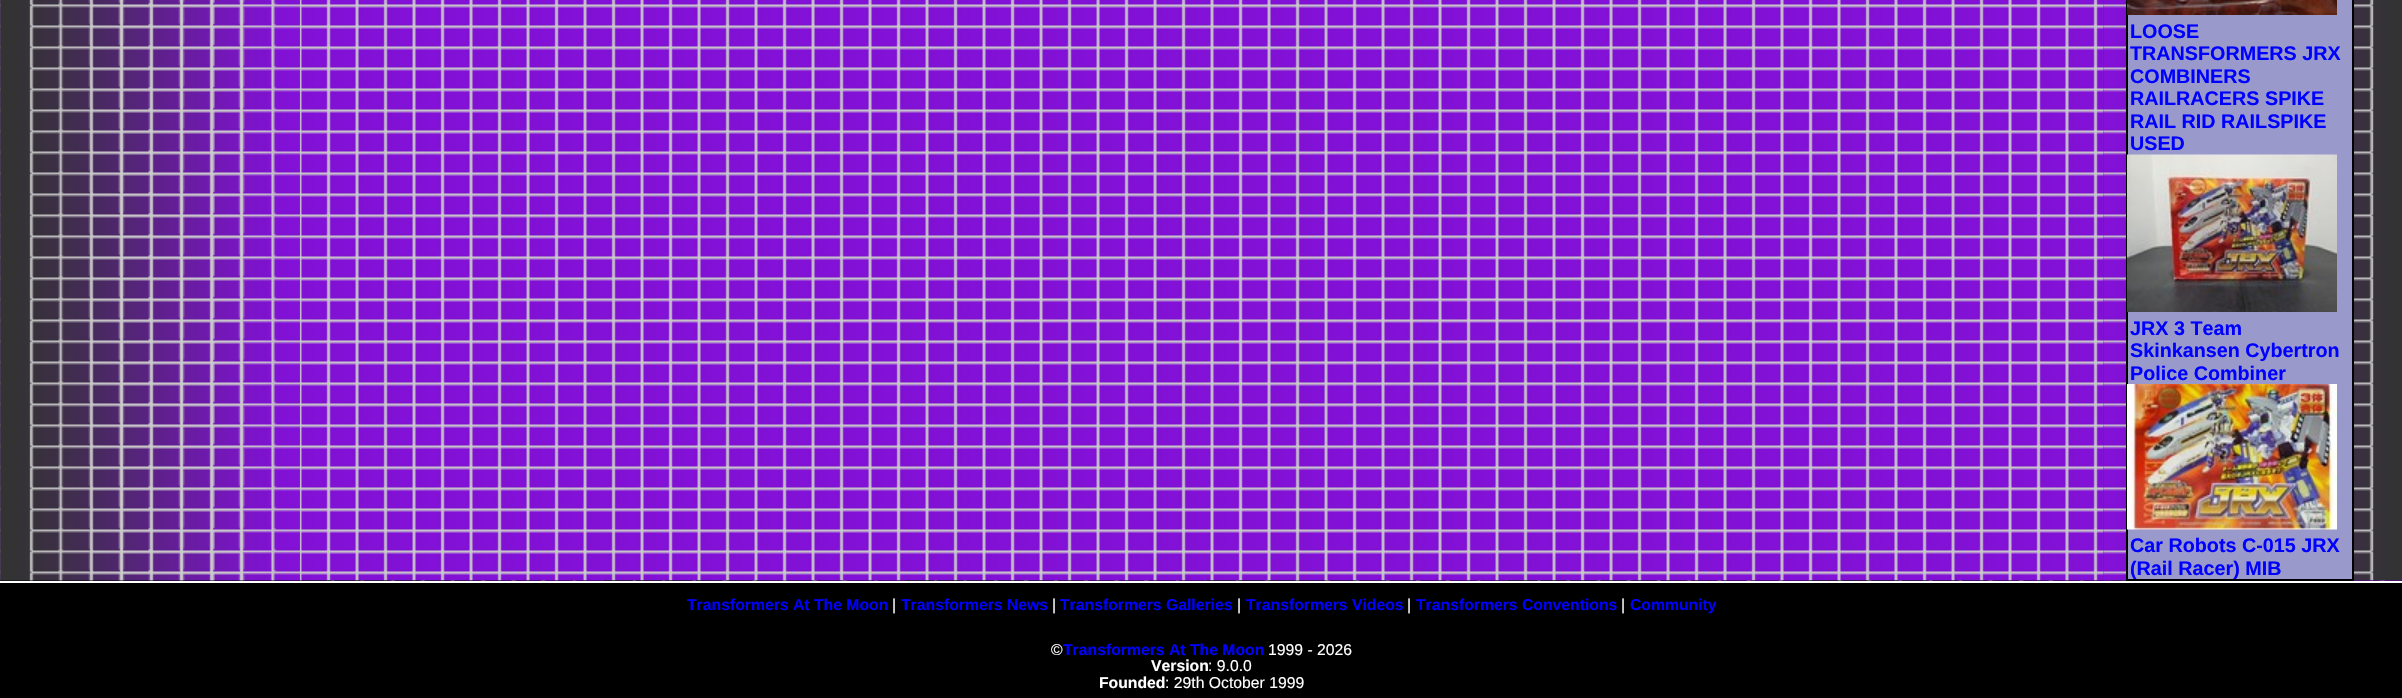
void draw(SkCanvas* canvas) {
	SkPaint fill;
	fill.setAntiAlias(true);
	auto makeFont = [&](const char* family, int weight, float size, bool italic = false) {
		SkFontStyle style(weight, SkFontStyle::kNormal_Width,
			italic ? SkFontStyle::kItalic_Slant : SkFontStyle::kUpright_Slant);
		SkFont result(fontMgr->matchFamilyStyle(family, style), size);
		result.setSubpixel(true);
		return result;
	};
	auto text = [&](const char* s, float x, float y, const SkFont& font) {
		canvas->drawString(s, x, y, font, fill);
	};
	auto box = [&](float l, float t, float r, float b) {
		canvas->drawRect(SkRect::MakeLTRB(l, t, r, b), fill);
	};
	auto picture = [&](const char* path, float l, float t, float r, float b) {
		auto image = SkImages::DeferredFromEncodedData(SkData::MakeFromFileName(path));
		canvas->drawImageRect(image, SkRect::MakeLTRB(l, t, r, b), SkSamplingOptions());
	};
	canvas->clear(0xFF000000);
	picture("image0.png", 0, 0, 2402, 581);
	picture("image1.png", 300, 0, 2402, 581);
	picture("image2.png", 2103, 0, 2402, 581);
	fill.setColor(0xFF9999CC);
	box(2128, 0, 2352, 579);
	fill.setColor(0xFF000000);
	box(2352, 0, 2354, 581);
	box(2126, 579, 2354, 581);
	box(2126, 0, 2128, 581);
	picture("image3.png", 2127, 0, 2337, 15);
	picture("image4.png", 2127, 154, 2337, 312);
	picture("image5.png", 2127, 384, 2337, 530);
	fill.setColor(0xFFFFFFFF);
	box(0, 581, 2402, 583);
	auto font1 = makeFont("Liberation Sans", 700, 19.75f);
	fill.setColor(0xFF0000FF);
	text("LOOSE", 2130, 38, font1);
	text("TRANSFORMERS JRX", 2130, 60, font1);
	text("COMBINERS", 2130, 83, font1);
	text("RAILRACERS SPIKE", 2130, 105, font1);
	text("RAIL RID RAILSPIKE", 2130, 128, font1);
	text("USED", 2130, 150, font1);
	text("JRX 3 Team", 2130, 335, font1);
	text("Skinkansen Cybertron", 2130, 357, font1);
	text("Police Combiner", 2130, 380, font1);
	text("Car Robots C-015 JRX", 2130, 552, font1);
	text("(Rail Racer) MIB", 2130, 575, font1);
	auto font2 = makeFont("Liberation Sans", 700, 15.75f);
	text("Transformers At The Moon", 687, 610, font2);
	auto font3 = makeFont("Liberation Sans", 400, 15.75f);
	fill.setColor(0xFFFFFFFF);
	text("|", 892, 610, font3);
	fill.setColor(0xFF0000FF);
	text("Transformers News", 901, 610, font2);
	fill.setColor(0xFFFFFFFF);
	text("|", 1052, 610, font3);
	fill.setColor(0xFF0000FF);
	text("Transformers Galleries", 1060, 610, font2);
	fill.setColor(0xFFFFFFFF);
	text("|", 1237, 610, font3);
	fill.setColor(0xFF0000FF);
	text("Transformers Videos", 1246, 610, font2);
	fill.setColor(0xFFFFFFFF);
	text("|", 1407, 610, font3);
	fill.setColor(0xFF0000FF);
	text("Transformers Conventions", 1416, 610, font2);
	fill.setColor(0xFFFFFFFF);
	text("|", 1621, 610, font3);
	fill.setColor(0xFF0000FF);
	text("Community", 1630, 610, font2);
	fill.setColor(0xFFFFFFFF);
	text("©", 1051, 655, font3);
	fill.setColor(0xFF0000FF);
	text("Transformers At The Moon", 1063, 655, font2);
	fill.setColor(0xFFFFFFFF);
	text("1999 - 2026", 1268, 655, font3);
	text("Version", 1151, 671, font2);
	text(": 9.0.0", 1208, 671, font3);
	text("Founded", 1099, 688, font2);
	text(": 29th October 1999", 1165, 688, font3);
}
